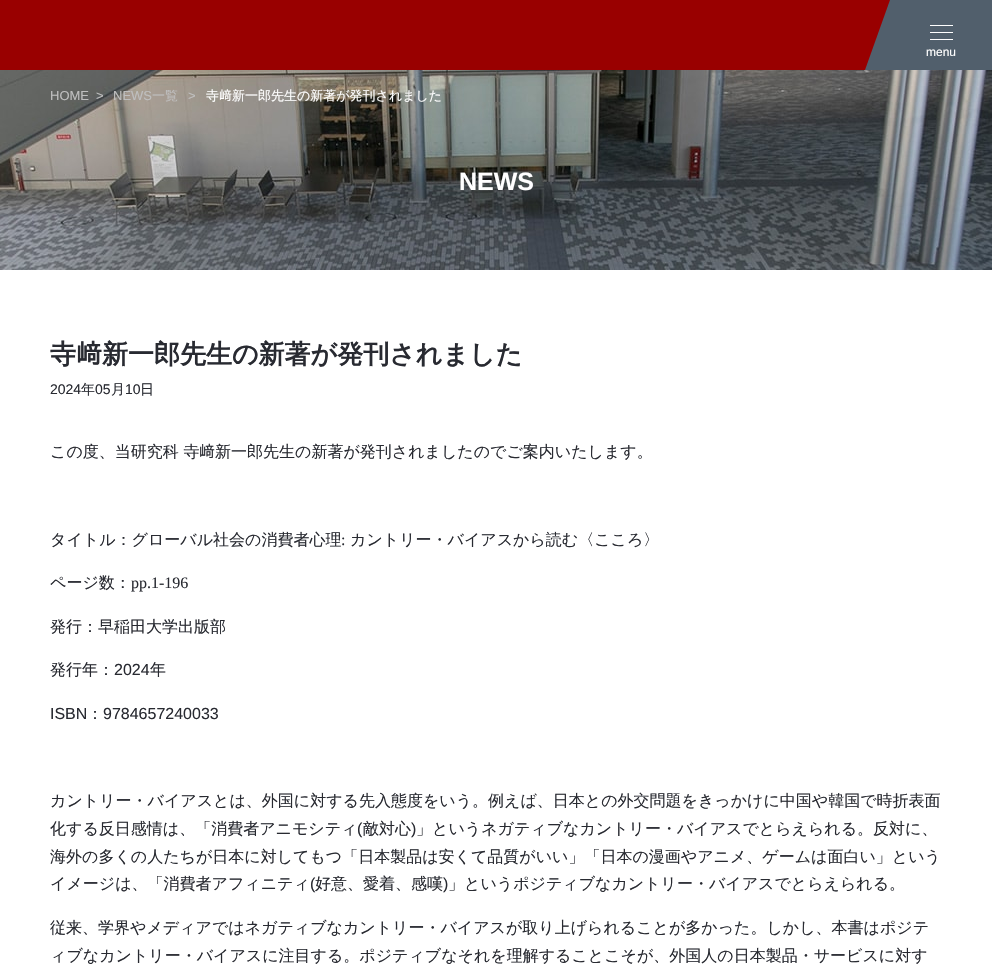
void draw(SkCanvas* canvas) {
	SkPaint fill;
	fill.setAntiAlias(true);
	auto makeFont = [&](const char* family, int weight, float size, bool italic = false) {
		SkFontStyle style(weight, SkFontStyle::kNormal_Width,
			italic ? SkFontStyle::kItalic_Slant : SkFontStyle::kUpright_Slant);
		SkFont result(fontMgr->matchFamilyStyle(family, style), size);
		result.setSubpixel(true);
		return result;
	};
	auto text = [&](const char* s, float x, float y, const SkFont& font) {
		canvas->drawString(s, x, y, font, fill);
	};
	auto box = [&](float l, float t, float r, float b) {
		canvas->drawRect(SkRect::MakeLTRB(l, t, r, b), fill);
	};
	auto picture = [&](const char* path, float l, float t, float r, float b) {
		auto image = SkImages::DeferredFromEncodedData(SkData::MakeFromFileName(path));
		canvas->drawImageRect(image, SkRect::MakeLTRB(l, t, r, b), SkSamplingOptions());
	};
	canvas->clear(0xFFFFFFFF);
	fill.setColor(0xFF990000);
	box(0, 0, 890, 70);
	fill.setColor(0xFF515F6C);
	box(890, 0, 992, 70);
	canvas->drawPath(SkPathBuilder().moveTo(890, 70).lineTo(865, 70).lineTo(890, 0).close().detach(), fill);
	fill.setColor(0xFFFFFFFF);
	box(930, 25, 953, 26);
	box(930, 32, 953, 33);
	box(930, 39, 953, 40);
	picture("image0.png", 0, 70, 992, 270);
	auto font1 = makeFont("Liberation Sans", 400, 12);
	text("menu", 926, 56, font1);
	auto font2 = makeFont("Liberation Sans", 400, 13);
	fill.setColor(0xFFBFBFBF);
	text("HOME", 50, 100, font2);
	text(">", 96, 100, font2);
	text("NEWS", 113, 100, font2);
	auto font3 = makeFont("WenQuanYi Zen Hei", 500, 13);
	text("一覧", 152, 100, font3);
	text(">", 188, 100, font2);
	fill.setColor(0xFFFFFFFF);
	text("寺", 206, 100, font3);
	auto font4 = makeFont("IPAGothic", 400, 13);
	text("﨑", 219, 100, font4);
	text("新一郎先生の新著が発刊されました", 232, 100, font3);
	auto font5 = makeFont("Liberation Sans", 700, 25);
	text("NEWS", 459, 190, font5);
	auto font6 = makeFont("WenQuanYi Zen Hei", 700, 26);
	fill.setColor(0xFF282A31);
	text("寺", 50, 363, font6);
	auto font7 = makeFont("IPAGothic", 700, 26);
	text("﨑", 76, 363, font7);
	text("新一郎先生の新著が発刊されました", 102, 363, font6);
	auto font8 = makeFont("Liberation Sans", 400, 14);
	text("2024", 50, 394, font8);
	auto font9 = makeFont("WenQuanYi Zen Hei", 500, 14);
	text("年", 81, 394, font9);
	text("05", 95, 394, font8);
	text("月", 111, 394, font9);
	text("10", 125, 394, font8);
	text("日", 140, 394, font9);
	auto font10 = makeFont("WenQuanYi Zen Hei", 500, 16);
	text("この度、当研究科 寺", 50, 457, font10);
	auto font11 = makeFont("IPAGothic", 400, 16);
	text("﨑", 199, 457, font11);
	text("新一郎先生の新著が発刊されましたのでご案内いたします。", 215, 457, font10);
	text("タイトル：グローバル社会の消費者心理", 50, 545, font10);
	auto font12 = makeFont("Liberation Serif", 400, 16);
	text(":", 341, 545, font12);
	text("カントリー・バイアスから読む〈こころ〉", 350, 545, font10);
	text("ページ数：", 50, 588, font10);
	text("pp.1-196", 131, 588, font12);
	text("発行：早稲田大学出版部", 50, 632, font10);
	text("発行年：", 50, 675, font10);
	auto font13 = makeFont("Liberation Sans", 400, 16);
	text("2024", 114, 675, font13);
	text("年", 150, 675, font10);
	text("ISBN", 50, 719, font13);
	text("：", 87, 719, font10);
	text("9784657240033", 103, 719, font13);
	text("カントリー・バイアスとは、外国に対する先入態度をいう。例えば、日本との外交問題をきっかけに中国や韓国で時折表面", 50, 806, font10);
	text("化する反日感情は、「消費者アニモシティ", 50, 834, font10);
	text("(", 357, 834, font13);
	text("敵対心", 363, 834, font10);
	text(")", 411, 834, font13);
	text("」というネガティブなカントリー・バイアスでとらえられる。反対に、", 416, 834, font10);
	text("海外の多くの人たちが日本に対してもつ「日本製品は安くて品質がいい」「日本の漫画やアニメ、ゲームは面白い」という", 50, 862, font10);
	text("イメージは、「消費者アフィニティ", 50, 889, font10);
	text("(", 310, 889, font13);
	text("好意、愛着、感嘆", 315, 889, font10);
	text(")", 443, 889, font13);
	text("」というポジティブなカントリー・バイアスでとらえられる。", 448, 889, font10);
	text("従来、学界やメディアではネガティブなカントリー・バイアスが取り上げられることが多かった。しかし、本書はポジテ", 50, 933, font10);
	text("ィブなカントリー・バイアスに注目する。ポジティブなそれを理解することこそが、外国人の日本製品・サービスに対す", 50, 961, font10);
}
